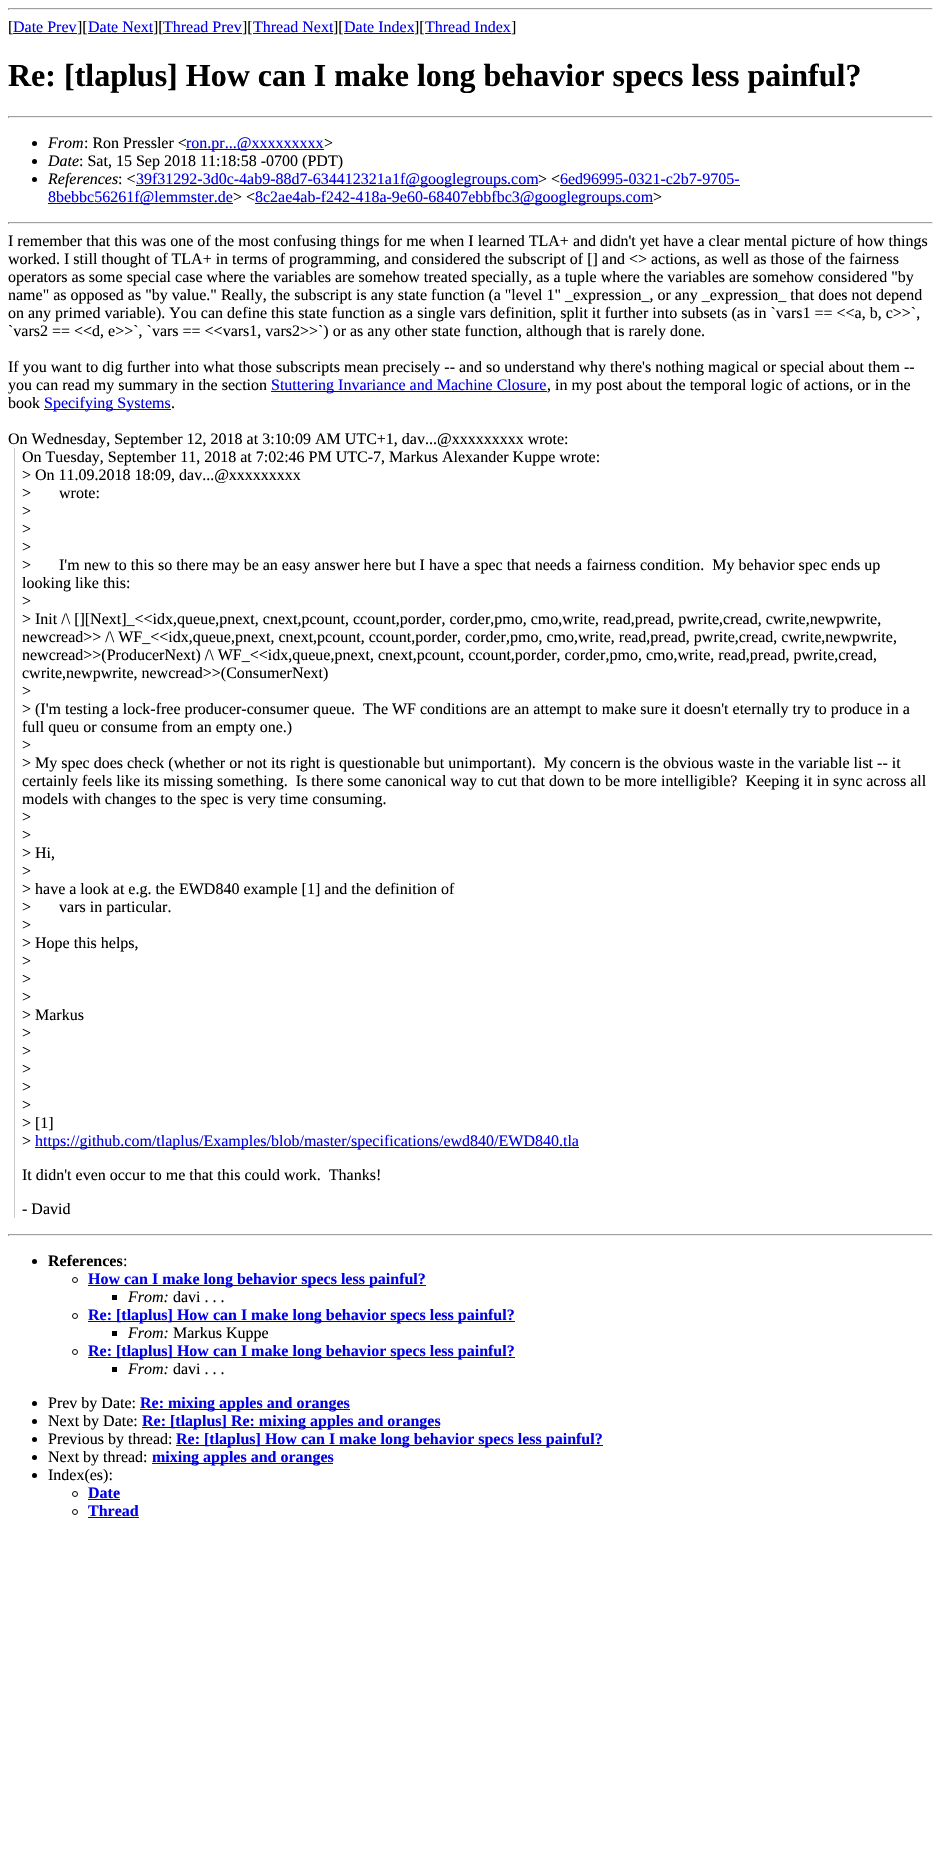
void draw(SkCanvas* canvas) {
	SkPaint fill;
	fill.setAntiAlias(true);
	auto makeFont = [&](const char* family, int weight, float size, bool italic = false) {
		SkFontStyle style(weight, SkFontStyle::kNormal_Width,
			italic ? SkFontStyle::kItalic_Slant : SkFontStyle::kUpright_Slant);
		SkFont result(fontMgr->matchFamilyStyle(family, style), size);
		result.setSubpixel(true);
		return result;
	};
	auto text = [&](const char* s, float x, float y, const SkFont& font) {
		canvas->drawString(s, x, y, font, fill);
	};
	auto box = [&](float l, float t, float r, float b) {
		canvas->drawRect(SkRect::MakeLTRB(l, t, r, b), fill);
	};
	canvas->clear(0xFFFFFFFF);
	fill.setColor(0xFF9F9F9F);
	box(8, 8, 933, 9);
	fill.setColor(0xFFEEEEEE);
	box(932, 8, 933, 10);
	box(8, 9, 933, 10);
	fill.setColor(0xFF9F9F9F);
	box(8, 8, 9, 10);
	fill.setColor(0xFF0000EE);
	box(13, 33, 77, 34);
	box(88, 33, 153, 34);
	box(163, 33, 242, 34);
	box(253, 33, 333, 34);
	box(344, 33, 414, 34);
	box(425, 33, 511, 34);
	fill.setColor(0xFF9F9F9F);
	box(8, 116, 933, 117);
	fill.setColor(0xFFEEEEEE);
	box(932, 116, 933, 118);
	box(8, 117, 933, 118);
	fill.setColor(0xFF9F9F9F);
	box(8, 116, 9, 118);
	fill.setColor(0xFF000000);
	canvas->drawCircle(34.5f, 143.5f, 2.5f, fill);
	fill.setColor(0xFF0000EE);
	box(186, 149, 324, 150);
	fill.setColor(0xFF000000);
	canvas->drawCircle(34.5f, 161.5f, 2.5f, fill);
	canvas->drawCircle(34.5f, 179.5f, 2.5f, fill);
	fill.setColor(0xFF0000EE);
	box(136, 185, 538, 186);
	box(560, 185, 740, 186);
	box(48, 203, 233, 204);
	box(255, 203, 653, 204);
	fill.setColor(0xFF9F9F9F);
	box(8, 222, 933, 223);
	fill.setColor(0xFFEEEEEE);
	box(932, 222, 933, 224);
	box(8, 223, 933, 224);
	fill.setColor(0xFF9F9F9F);
	box(8, 222, 9, 224);
	fill.setColor(0xFF0000EE);
	box(271, 391, 547, 392);
	box(44, 409, 171, 410);
	fill.setColor(0xFFCCCCCC);
	box(14, 448, 15, 1218);
	fill.setColor(0xFF0000EE);
	box(35, 1147, 351, 1148);
	box(351, 1147, 579, 1148);
	fill.setColor(0xFF9F9F9F);
	box(8, 1234, 933, 1235);
	fill.setColor(0xFFEEEEEE);
	box(932, 1234, 933, 1236);
	box(8, 1235, 933, 1236);
	fill.setColor(0xFF9F9F9F);
	box(8, 1234, 9, 1236);
	fill.setColor(0xFF000000);
	canvas->drawCircle(34.5f, 1261.5f, 2.5f, fill);
	fill.setStyle(SkPaint::kStroke_Style);
	fill.setStrokeWidth(1);
	canvas->drawCircle(75, 1280, 2.5f, fill);
	fill.setStyle(SkPaint::kFill_Style);
	fill.setColor(0xFF0000EE);
	box(88, 1285, 426, 1286);
	fill.setColor(0xFF000000);
	box(112, 1295, 117, 1300);
	fill.setStyle(SkPaint::kStroke_Style);
	canvas->drawCircle(75, 1316, 2.5f, fill);
	fill.setStyle(SkPaint::kFill_Style);
	fill.setColor(0xFF0000EE);
	box(88, 1321, 515, 1322);
	fill.setColor(0xFF000000);
	box(112, 1331, 117, 1336);
	fill.setStyle(SkPaint::kStroke_Style);
	canvas->drawCircle(75, 1352, 2.5f, fill);
	fill.setStyle(SkPaint::kFill_Style);
	fill.setColor(0xFF0000EE);
	box(88, 1357, 515, 1358);
	fill.setColor(0xFF000000);
	box(112, 1367, 117, 1372);
	canvas->drawCircle(34.5f, 1403.5f, 2.5f, fill);
	fill.setColor(0xFF0000EE);
	box(140, 1409, 350, 1410);
	fill.setColor(0xFF000000);
	canvas->drawCircle(34.5f, 1421.5f, 2.5f, fill);
	fill.setColor(0xFF0000EE);
	box(142, 1427, 440, 1428);
	fill.setColor(0xFF000000);
	canvas->drawCircle(34.5f, 1439.5f, 2.5f, fill);
	fill.setColor(0xFF0000EE);
	box(176, 1445, 603, 1446);
	fill.setColor(0xFF000000);
	canvas->drawCircle(34.5f, 1457.5f, 2.5f, fill);
	fill.setColor(0xFF0000EE);
	box(152, 1463, 333, 1464);
	fill.setColor(0xFF000000);
	canvas->drawCircle(34.5f, 1475.5f, 2.5f, fill);
	fill.setStyle(SkPaint::kStroke_Style);
	canvas->drawCircle(75, 1494, 2.5f, fill);
	fill.setStyle(SkPaint::kFill_Style);
	fill.setColor(0xFF0000EE);
	box(88, 1499, 120, 1500);
	fill.setStyle(SkPaint::kStroke_Style);
	fill.setColor(0xFF000000);
	canvas->drawCircle(75, 1512, 2.5f, fill);
	fill.setStyle(SkPaint::kFill_Style);
	fill.setColor(0xFF0000EE);
	box(88, 1517, 139, 1518);
	auto font1 = makeFont("Liberation Serif", 400, 16);
	fill.setColor(0xFF000000);
	text("[", 8, 32, font1);
	fill.setColor(0xFF0000EE);
	text("Date Prev", 13, 32, font1);
	fill.setColor(0xFF000000);
	text("][", 77, 32, font1);
	fill.setColor(0xFF0000EE);
	text("Date Next", 88, 32, font1);
	fill.setColor(0xFF000000);
	text("][", 153, 32, font1);
	fill.setColor(0xFF0000EE);
	text("Thread Prev", 163, 32, font1);
	fill.setColor(0xFF000000);
	text("][", 242, 32, font1);
	fill.setColor(0xFF0000EE);
	text("Thread Next", 253, 32, font1);
	fill.setColor(0xFF000000);
	text("][", 333, 32, font1);
	fill.setColor(0xFF0000EE);
	text("Date Index", 344, 32, font1);
	fill.setColor(0xFF000000);
	text("][", 414, 32, font1);
	fill.setColor(0xFF0000EE);
	text("Thread Index", 425, 32, font1);
	fill.setColor(0xFF000000);
	text("]", 511, 32, font1);
	auto font2 = makeFont("Liberation Serif", 700, 32);
	text("Re: [tlaplus] How can I make long behavior specs less painful?", 8, 86, font2);
	auto font3 = makeFont("Liberation Serif", 400, 16, true);
	text("From", 48, 148, font3);
	text(": Ron Pressler <", 84, 148, font1);
	fill.setColor(0xFF0000EE);
	text("ron.pr...@xxxxxxxxx", 186, 148, font1);
	fill.setColor(0xFF000000);
	text(">", 324, 148, font1);
	text("Date", 48, 166, font3);
	text(": Sat, 15 Sep 2018 11:18:58 -0700 (PDT)", 79, 166, font1);
	text("References", 48, 184, font3);
	text(": <", 118, 184, font1);
	fill.setColor(0xFF0000EE);
	text("39f31292-3d0c-4ab9-88d7-634412321a1f@googlegroups.com", 136, 184, font1);
	fill.setColor(0xFF000000);
	text("> <", 538, 184, font1);
	fill.setColor(0xFF0000EE);
	text("6ed96995-0321-c2b7-9705-", 560, 184, font1);
	text("8bebbc56261f@lemmster.de", 48, 202, font1);
	fill.setColor(0xFF000000);
	text("> <", 233, 202, font1);
	fill.setColor(0xFF0000EE);
	text("8c2ae4ab-f242-418a-9e60-68407ebbfbc3@googlegroups.com", 255, 202, font1);
	fill.setColor(0xFF000000);
	text(">", 653, 202, font1);
	text("I remember that this was one of the most confusing things for me when I learned TLA+ and didn't yet have a clear mental picture of how things", 8, 246, font1);
	text("worked. I still thought of TLA+ in terms of programming, and considered the subscript of [] and <> actions, as well as those of the fairness", 8, 264, font1);
	text("operators as some special case where the variables are somehow treated specially, as a tuple where the variables are somehow considered \"by", 8, 282, font1);
	text("name\" as opposed as \"by value.\" Really, the subscript is any state function (a \"level 1\" _expression_, or any _expression_ that does not depend", 8, 300, font1);
	text("on any primed variable). You can define this state function as a single vars definition, split it further into subsets (as in `vars1 == <<a, b, c>>`,", 8, 318, font1);
	text("`vars2 == <<d, e>>`, `vars == <<vars1, vars2>>`) or as any other state function, although that is rarely done.", 8, 336, font1);
	text("If you want to dig further into what those subscripts mean precisely -- and so understand why there's nothing magical or special about them --", 8, 372, font1);
	text("you can read my summary in the section", 8, 390, font1);
	fill.setColor(0xFF0000EE);
	text("Stuttering Invariance and Machine Closure", 271, 390, font1);
	fill.setColor(0xFF000000);
	text(", in my post about the temporal logic of actions, or in the", 547, 390, font1);
	text("book", 8, 408, font1);
	fill.setColor(0xFF0000EE);
	text("Specifying Systems", 44, 408, font1);
	fill.setColor(0xFF000000);
	text(".", 171, 408, font1);
	text("On Wednesday, September 12, 2018 at 3:10:09 AM UTC+1, dav...@xxxxxxxxx wrote:", 8, 444, font1);
	text("On Tuesday, September 11, 2018 at 7:02:46 PM UTC-7, Markus Alexander Kuppe wrote:", 22, 462, font1);
	text("> On 11.09.2018 18:09, dav...@xxxxxxxxx", 22, 480, font1);
	text(">       wrote:", 22, 498, font1);
	text(">", 22, 516, font1);
	text(">", 22, 534, font1);
	text(">", 22, 552, font1);
	text(">       I'm new to this so there may be an easy answer here but I have a spec that needs a fairness condition.  My behavior spec ends up", 22, 570, font1);
	text("looking like this:", 22, 588, font1);
	text(">", 22, 606, font1);
	text("> Init /\\ [][Next]_<<idx,queue,pnext, cnext,pcount, ccount,porder, corder,pmo, cmo,write, read,pread, pwrite,cread, cwrite,newpwrite,", 22, 624, font1);
	text("newcread>> /\\ WF_<<idx,queue,pnext, cnext,pcount, ccount,porder, corder,pmo, cmo,write, read,pread, pwrite,cread, cwrite,newpwrite,", 22, 642, font1);
	text("newcread>>(ProducerNext) /\\ WF_<<idx,queue,pnext, cnext,pcount, ccount,porder, corder,pmo, cmo,write, read,pread, pwrite,cread,", 22, 660, font1);
	text("cwrite,newpwrite, newcread>>(ConsumerNext)", 22, 678, font1);
	text(">", 22, 696, font1);
	text("> (I'm testing a lock-free producer-consumer queue.  The WF conditions are an attempt to make sure it doesn't eternally try to produce in a", 22, 714, font1);
	text("full queu or consume from an empty one.)", 22, 732, font1);
	text(">", 22, 750, font1);
	text("> My spec does check (whether or not its right is questionable but unimportant).  My concern is the obvious waste in the variable list -- it", 22, 768, font1);
	text("certainly feels like its missing something.  Is there some canonical way to cut that down to be more intelligible?  Keeping it in sync across all", 22, 786, font1);
	text("models with changes to the spec is very time consuming.", 22, 804, font1);
	text(">", 22, 822, font1);
	text(">", 22, 840, font1);
	text("> Hi,", 22, 858, font1);
	text(">", 22, 876, font1);
	text("> have a look at e.g. the EWD840 example [1] and the definition of", 22, 894, font1);
	text(">       vars in particular.", 22, 912, font1);
	text(">", 22, 930, font1);
	text("> Hope this helps,", 22, 948, font1);
	text(">", 22, 966, font1);
	text(">", 22, 984, font1);
	text(">", 22, 1002, font1);
	text("> Markus", 22, 1020, font1);
	text(">", 22, 1038, font1);
	text(">", 22, 1056, font1);
	text(">", 22, 1074, font1);
	text(">", 22, 1092, font1);
	text(">", 22, 1110, font1);
	text("> [1]", 22, 1128, font1);
	text(">", 22, 1146, font1);
	fill.setColor(0xFF0000EE);
	text("https://github.com/tlaplus/Examples/blob/master/", 35, 1146, font1);
	text("specifications/ewd840/EWD840.tla", 351, 1146, font1);
	fill.setColor(0xFF000000);
	text("It didn't even occur to me that this could work.  Thanks!", 22, 1180, font1);
	text("- David", 22, 1214, font1);
	auto font4 = makeFont("Liberation Serif", 700, 16);
	text("References", 48, 1266, font4);
	text(":", 123, 1266, font1);
	fill.setColor(0xFF0000EE);
	text("How can I make long behavior specs less painful?", 88, 1284, font4);
	fill.setColor(0xFF000000);
	text("From:", 128, 1302, font3);
	text("davi . . .", 173, 1302, font1);
	fill.setColor(0xFF0000EE);
	text("Re: [tlaplus] How can I make long behavior specs less painful?", 88, 1320, font4);
	fill.setColor(0xFF000000);
	text("From:", 128, 1338, font3);
	text("Markus Kuppe", 173, 1338, font1);
	fill.setColor(0xFF0000EE);
	text("Re: [tlaplus] How can I make long behavior specs less painful?", 88, 1356, font4);
	fill.setColor(0xFF000000);
	text("From:", 128, 1374, font3);
	text("davi . . .", 173, 1374, font1);
	text("Prev by Date:", 48, 1408, font1);
	fill.setColor(0xFF0000EE);
	text("Re: mixing apples and oranges", 140, 1408, font4);
	fill.setColor(0xFF000000);
	text("Next by Date:", 48, 1426, font1);
	fill.setColor(0xFF0000EE);
	text("Re: [tlaplus] Re: mixing apples and oranges", 142, 1426, font4);
	fill.setColor(0xFF000000);
	text("Previous by thread:", 48, 1444, font1);
	fill.setColor(0xFF0000EE);
	text("Re: [tlaplus] How can I make long behavior specs less painful?", 176, 1444, font4);
	fill.setColor(0xFF000000);
	text("Next by thread:", 48, 1462, font1);
	fill.setColor(0xFF0000EE);
	text("mixing apples and oranges", 152, 1462, font4);
	fill.setColor(0xFF000000);
	text("Index(es):", 48, 1480, font1);
	fill.setColor(0xFF0000EE);
	text("Date", 88, 1498, font4);
	text("Thread", 88, 1516, font4);
}
